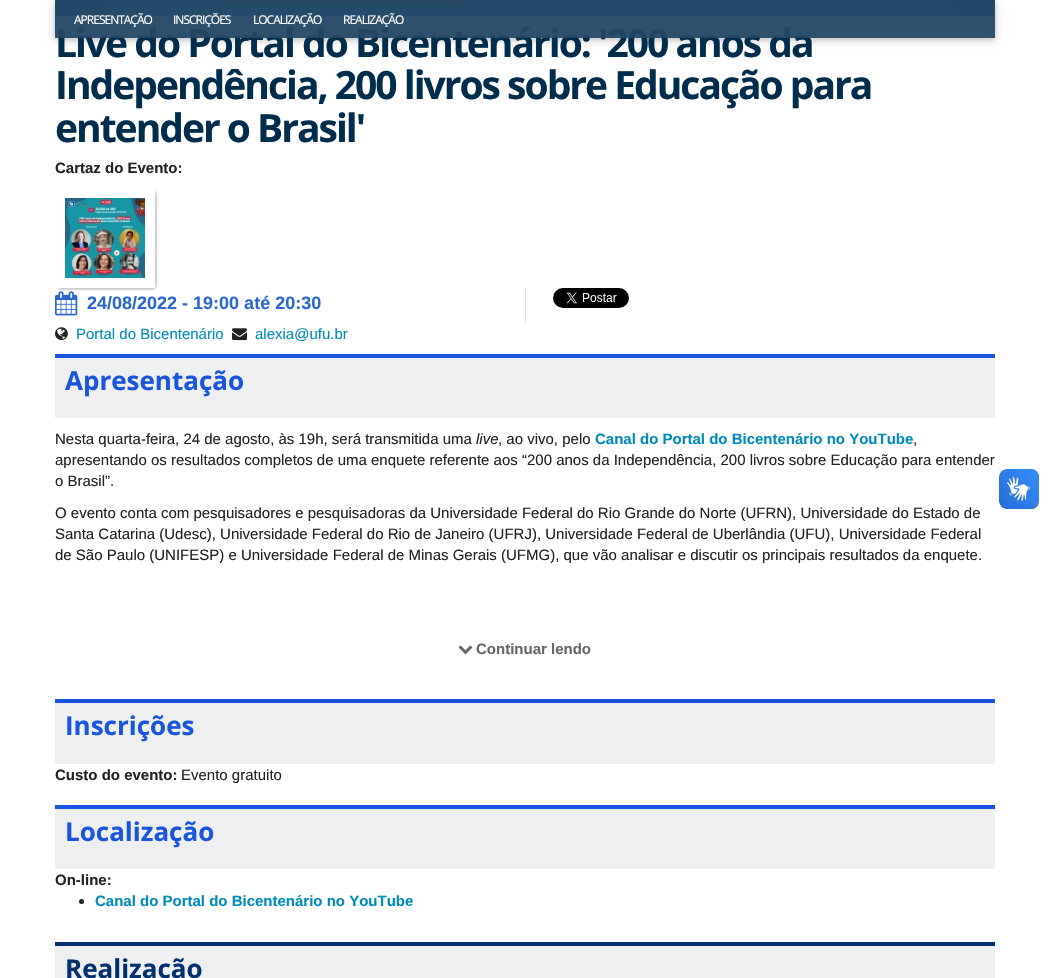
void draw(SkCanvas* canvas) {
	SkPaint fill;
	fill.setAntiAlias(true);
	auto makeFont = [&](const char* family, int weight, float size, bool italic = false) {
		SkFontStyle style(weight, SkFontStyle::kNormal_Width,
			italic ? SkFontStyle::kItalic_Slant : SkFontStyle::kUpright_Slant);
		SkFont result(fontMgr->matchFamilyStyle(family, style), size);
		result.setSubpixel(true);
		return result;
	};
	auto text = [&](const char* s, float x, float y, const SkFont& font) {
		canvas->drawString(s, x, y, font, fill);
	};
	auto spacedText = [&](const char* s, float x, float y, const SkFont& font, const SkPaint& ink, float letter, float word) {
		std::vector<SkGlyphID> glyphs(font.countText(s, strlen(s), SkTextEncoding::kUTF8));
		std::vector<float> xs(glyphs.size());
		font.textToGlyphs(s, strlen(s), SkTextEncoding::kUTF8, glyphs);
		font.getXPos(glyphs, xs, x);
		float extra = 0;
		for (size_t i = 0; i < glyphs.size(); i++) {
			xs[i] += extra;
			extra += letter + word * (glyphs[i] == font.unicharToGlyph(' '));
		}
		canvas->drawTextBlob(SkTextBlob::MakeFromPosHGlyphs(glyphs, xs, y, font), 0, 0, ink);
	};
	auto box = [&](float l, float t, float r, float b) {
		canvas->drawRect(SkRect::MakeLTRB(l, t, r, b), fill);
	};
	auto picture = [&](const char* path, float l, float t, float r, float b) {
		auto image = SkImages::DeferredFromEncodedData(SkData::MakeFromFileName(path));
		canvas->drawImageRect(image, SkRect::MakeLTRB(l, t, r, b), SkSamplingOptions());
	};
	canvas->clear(0xFFFFFFFF);
	picture("image0.png", 55, 0, 995, 16);
	canvas->save();
	canvas->clipPath(SkPathBuilder(SkPathFillType::kEvenOdd).moveTo(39, 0).lineTo(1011, 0).lineTo(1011, 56).lineTo(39, 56).close().moveTo(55, 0).lineTo(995, 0).lineTo(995, 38).lineTo(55, 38).close().detach(), true);
	fill.setColor(0x1F000000);
	fill.setMaskFilter(SkMaskFilter::MakeBlur(kNormal_SkBlurStyle, 5));
	canvas->drawRect(SkRect::MakeLTRB(55, 2, 995, 40), fill);
	fill.setMaskFilter(nullptr);
	canvas->restore();
	canvas->save();
	canvas->clipPath(SkPathBuilder(SkPathFillType::kEvenOdd).moveTo(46, 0).lineTo(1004, 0).lineTo(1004, 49).lineTo(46, 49).close().moveTo(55, 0).lineTo(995, 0).lineTo(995, 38).lineTo(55, 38).close().detach(), true);
	fill.setColor(0x29000000);
	fill.setMaskFilter(SkMaskFilter::MakeBlur(kNormal_SkBlurStyle, 2.5f));
	canvas->drawRect(SkRect::MakeLTRB(55, 2, 995, 40), fill);
	fill.setMaskFilter(nullptr);
	canvas->restore();
	fill.setColor(0xFFCCCCCC);
	fill.setMaskFilter(SkMaskFilter::MakeBlur(kNormal_SkBlurStyle, 1));
	canvas->drawRoundRect(SkRect::MakeLTRB(57, 190, 157, 290), 5, 5, fill);
	fill.setMaskFilter(nullptr);
	fill.setStyle(SkPaint::kStroke_Style);
	fill.setStrokeWidth(10);
	fill.setColor(0xFFFFFFFF);
	canvas->drawRect(SkRect::MakeLTRB(60, 193, 150, 283), fill);
	picture("image1.png", 65, 198, 145, 278);
	picture("image2.png", 55, 291, 78, 316);
	fill.setStyle(SkPaint::kFill_Style);
	fill.setColor(0xFFDFDFDF);
	box(525, 288, 526, 323);
	picture("image3.png", 553, 288, 629, 308);
	picture("image4.png", 55, 327, 68, 341);
	picture("image5.png", 232, 328, 247, 341);
	fill.setColor(0xFFEDEFF1);
	box(55, 358, 995, 418);
	fill.setColor(0xFF1A55DD);
	box(55, 354, 995, 358);
	picture("image6.png", 458, 645, 473, 655);
	fill.setColor(0xFFEDEFF1);
	box(55, 703, 995, 764);
	fill.setColor(0xFF1A55DD);
	box(55, 699, 995, 703);
	fill.setColor(0xFFEDEFF1);
	box(55, 809, 995, 869);
	fill.setColor(0xFF1A55DD);
	box(55, 805, 995, 809);
	fill.setColor(0xFF222222);
	canvas->drawCircle(81.5f, 901.5f, 2.5f, fill);
	fill.setColor(0xFFEDEFF1);
	box(55, 946, 995, 978);
	fill.setColor(0xFF03316F);
	box(55, 942, 995, 946);
	picture("image7.png", 999, 469, 1039, 509);
	picture("image8.png", 999, 469, 1039, 509);
	auto font1 = makeFont("Open Sans", 700, 39);
	fill.setColor(0xFF012D4D);
	spacedText("Live do Portal do Bicentenário: '200 anos da", 55, 57, font1, fill, -2, 0);
	fill.setColor(0xF2224765);
	box(55, 0, 995, 38);
	auto font2 = makeFont("Open Sans", 400, 12);
	fill.setColor(0xFFFFFFFF);
	spacedText("REALIZAÇÃO", 343, 24, font2, fill, -1, 0);
	spacedText("LOCALIZAÇÃO", 253, 24, font2, fill, -1, 0);
	spacedText("INSCRIÇÕES", 173, 24, font2, fill, -1, 0);
	spacedText("APRESENTAÇÃO", 74, 24, font2, fill, -1, 0);
	fill.setColor(0xFF012D4D);
	spacedText("Independência, 200 livros sobre Educação para", 55, 99, font1, fill, -2, 0);
	spacedText("entender o Brasil'", 55, 142, font1, fill, -2, 0);
	auto font3 = makeFont("Liberation Sans", 700, 15);
	fill.setColor(0xFF222222);
	text("Cartaz do Evento:", 55, 173, font3);
	auto font4 = makeFont("Liberation Sans", 700, 18);
	fill.setColor(0xFF2C67CD);
	text("24/08/2022 - 19:00 até 20:30", 87, 309, font4);
	auto font5 = makeFont("Liberation Sans", 400, 15);
	fill.setColor(0xFF008CBA);
	text("Portal do Bicentenário", 76, 339, font5);
	text("alexia@ufu.br", 255, 339, font5);
	auto font6 = makeFont("Open Sans", 700, 26);
	fill.setColor(0xFF1A55DD);
	text("Apresentação", 65, 390, font6);
	fill.setColor(0xFF222222);
	text("Nesta quarta-feira, 24 de agosto, às 19h, será transmitida uma", 55, 444, font5);
	auto font7 = makeFont("Liberation Sans", 400, 15, true);
	text("live", 476, 444, font7);
	text(", ao vivo, pelo", 498, 444, font5);
	fill.setColor(0xFF008CBA);
	text("Canal do Portal do Bicentenário no YouTube", 595, 444, font3);
	fill.setColor(0xFF222222);
	text(",", 913, 444, font5);
	text("apresentando os resultados completos de uma enquete referente aos “200 anos da Independência, 200 livros sobre Educação para entender", 55, 465, font5);
	text("o Brasil”.", 55, 486, font5);
	text("O evento conta com pesquisadores e pesquisadoras da Universidade Federal do Rio Grande do Norte (UFRN), Universidade do Estado de", 55, 518, font5);
	text("Santa Catarina (Udesc), Universidade Federal do Rio de Janeiro (UFRJ), Universidade Federal de Uberlândia (UFU), Universidade Federal", 55, 539, font5);
	text("de São Paulo (UNIFESP) e Universidade Federal de Minas Gerais (UFMG), que vão analisar e discutir os principais resultados da enquete.", 55, 560, font5);
	fill.setColor(0xFF666666);
	text("Continuar lendo", 476, 654, font3);
	fill.setColor(0xFF1A55DD);
	text("Inscrições", 65, 735, font6);
	fill.setColor(0xFF222222);
	text("Custo do evento:", 55, 780, font3);
	text("Evento gratuito", 181, 780, font5);
	fill.setColor(0xFF1A55DD);
	text("Localização", 65, 841, font6);
	fill.setColor(0xFF222222);
	text("On-line:", 55, 885, font3);
	fill.setColor(0xFF008CBA);
	text("Canal do Portal do Bicentenário no YouTube", 95, 906, font3);
	fill.setColor(0xFF03316F);
	text("Realização", 65, 978, font6);
}
